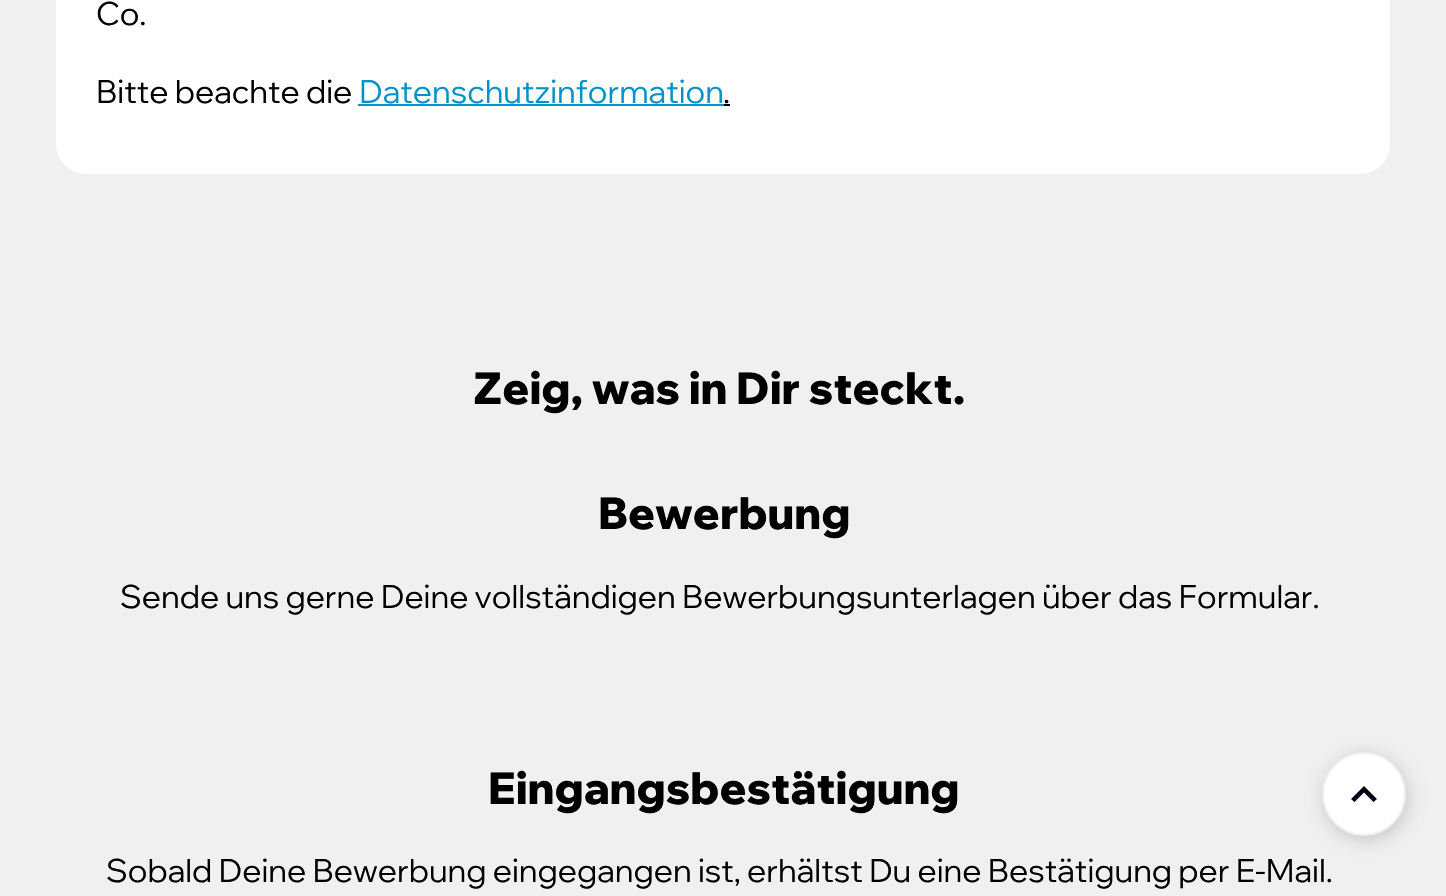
void draw(SkCanvas* canvas) {
	SkPaint fill;
	fill.setAntiAlias(true);
	auto makeFont = [&](const char* family, int weight, float size, bool italic = false) {
		SkFontStyle style(weight, SkFontStyle::kNormal_Width,
			italic ? SkFontStyle::kItalic_Slant : SkFontStyle::kUpright_Slant);
		SkFont result(fontMgr->matchFamilyStyle(family, style), size);
		result.setSubpixel(true);
		return result;
	};
	auto text = [&](const char* s, float x, float y, const SkFont& font) {
		canvas->drawString(s, x, y, font, fill);
	};
	auto box = [&](float l, float t, float r, float b) {
		canvas->drawRect(SkRect::MakeLTRB(l, t, r, b), fill);
	};
	auto roundBox = [&](float l, float t, float r, float b, float radius) {
		canvas->drawRoundRect(SkRect::MakeLTRB(l, t, r, b), radius, radius, fill);
	};
	canvas->clear(0xFFF0F0F0);
	fill.setColor(0xFFFFFFFF);
	roundBox(56, -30, 1390, 174, 30);
	fill.setColor(0xFF0092CA);
	box(358, 104, 724, 106);
	fill.setColor(0xFF000000);
	box(724, 104, 730, 106);
	fill.setColor(0x24000000);
	fill.setMaskFilter(SkMaskFilter::MakeBlur(kNormal_SkBlurStyle, 8));
	canvas->drawRoundRect(SkRect::MakeLTRB(1322, 754, 1410, 842), 44, 44, fill);
	fill.setMaskFilter(nullptr);
	fill.setColor(0xFFFFFFFF);
	canvas->drawCircle(1364, 794, 41, fill);
	fill.setStyle(SkPaint::kStroke_Style);
	fill.setStrokeWidth(2);
	fill.setColor(0xFFF0F0F0);
	canvas->drawCircle(1364, 794, 41, fill);
	fill.setStyle(SkPaint::kFill_Style);
	fill.setColor(0xFF000010);
	canvas->drawPath(SkPathBuilder().moveTo(1364, 786).lineTo(1377, 799).lineTo(1373.5f, 802).lineTo(1364, 792.5f).lineTo(1354.5f, 802).lineTo(1351, 799).close().detach(), fill);
	auto font1 = makeFont("Wix Madefor Display", 400, 32);
	fill.setColor(0xFF000000);
	text("Co.", 96, 25, font1);
	text("Bitte beachte die", 96, 103, font1);
	fill.setColor(0xFF0092CA);
	text("Datenschutzinformation", 359, 103, font1);
	fill.setColor(0xFF000000);
	text(".", 723, 103, font1);
	auto font2 = makeFont("Wix Madefor Display", 800, 44);
	text("Zeig, was in Dir steckt.", 473, 404, font2);
	text("Bewerbung", 598, 529, font2);
	text("Sende uns gerne Deine vollständigen Bewerbungsunterlagen über das Formular.", 120, 608, font1);
	text("Eingangsbestätigung", 488, 804, font2);
	text("Sobald Deine Bewerbung eingegangen ist, erhältst Du eine Bestätigung per E-Mail.", 106, 882, font1);
}
